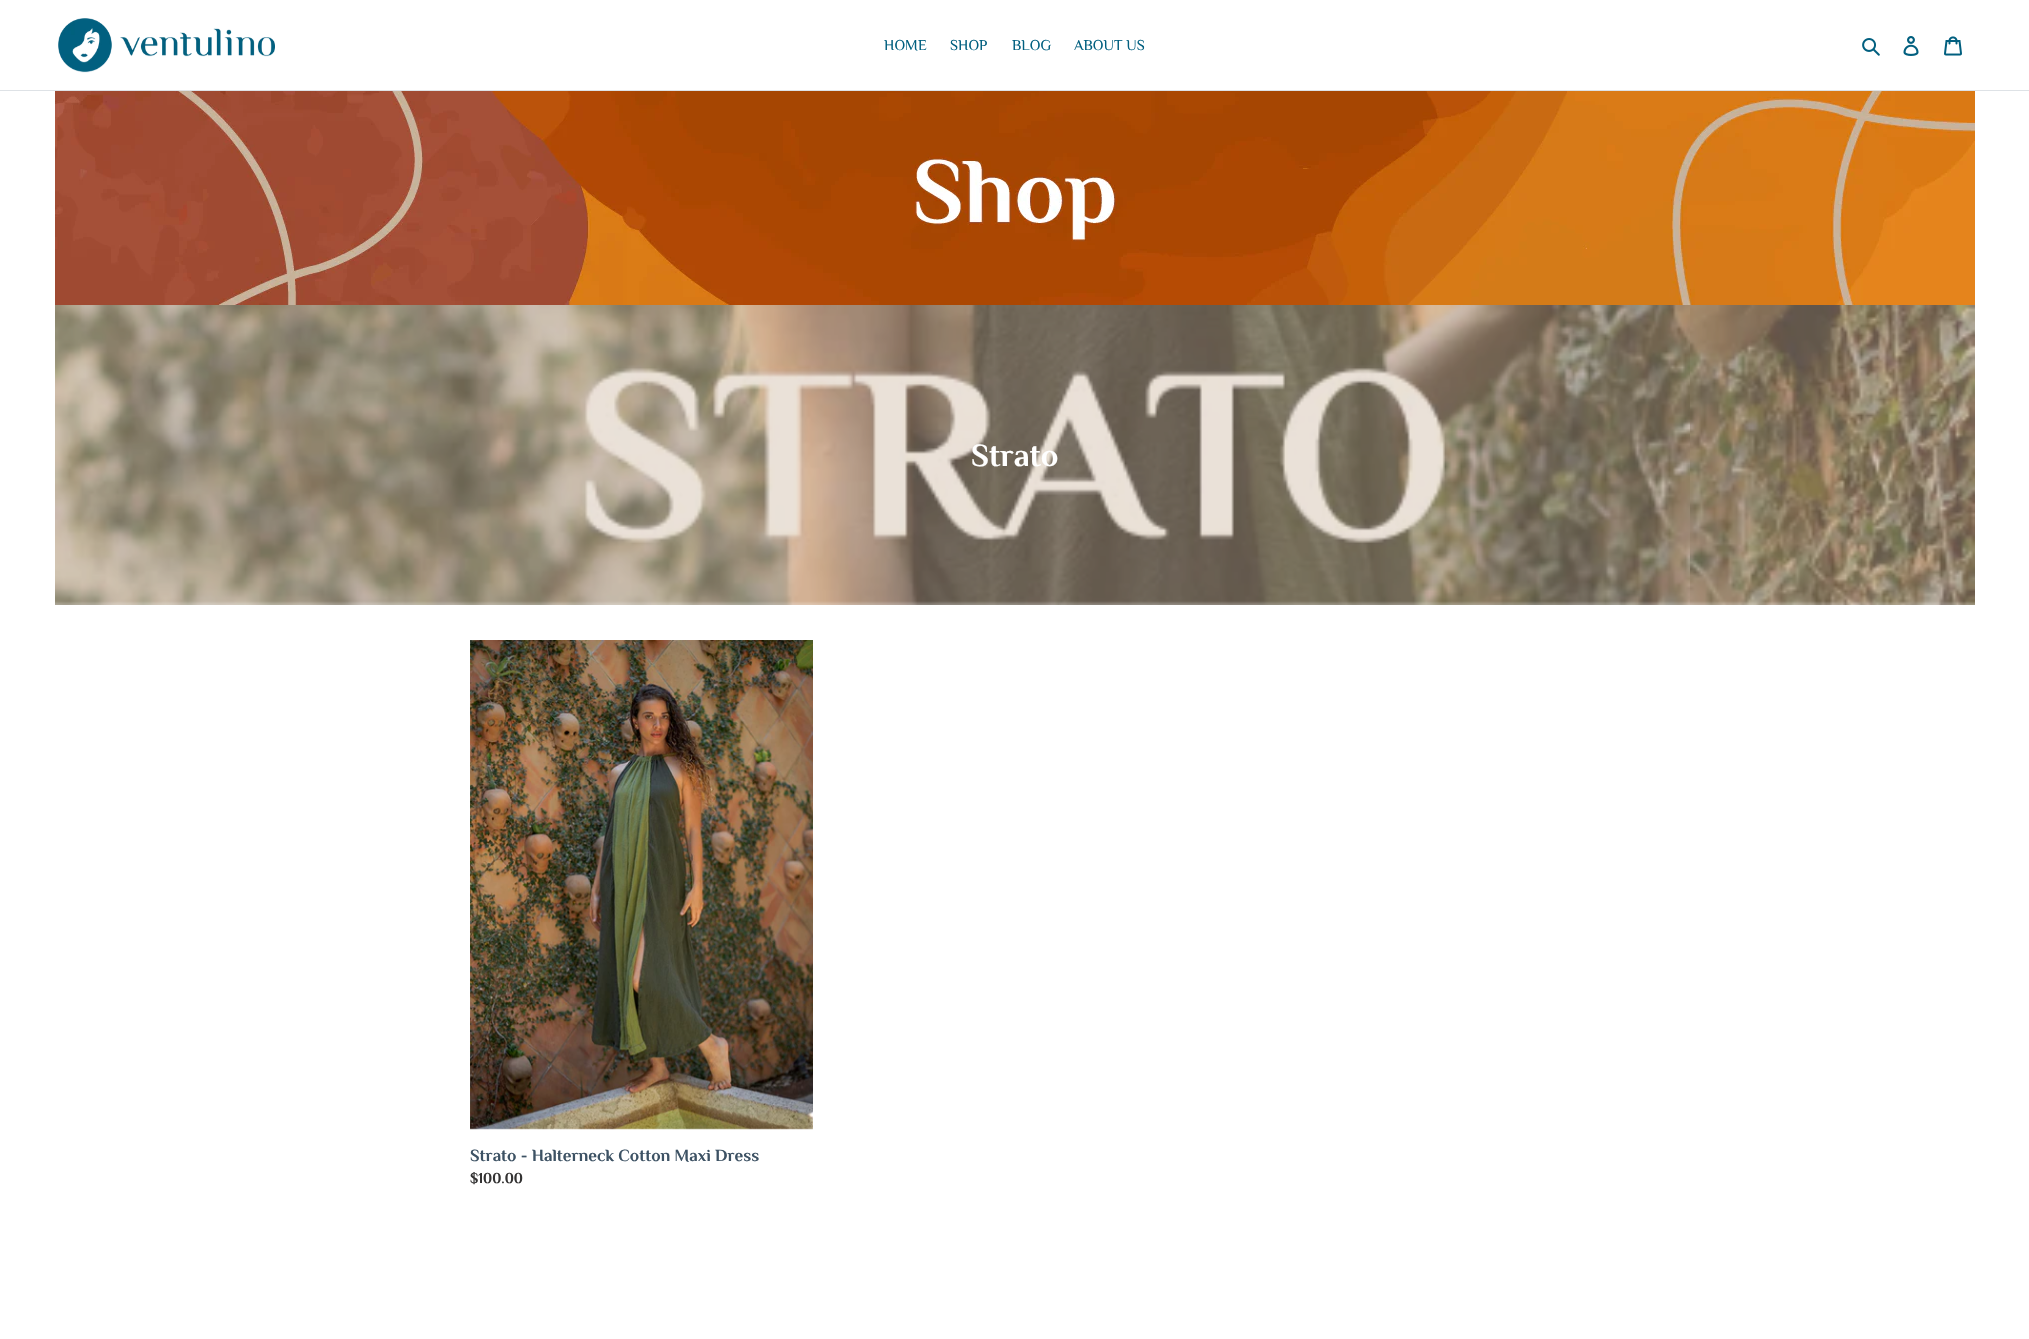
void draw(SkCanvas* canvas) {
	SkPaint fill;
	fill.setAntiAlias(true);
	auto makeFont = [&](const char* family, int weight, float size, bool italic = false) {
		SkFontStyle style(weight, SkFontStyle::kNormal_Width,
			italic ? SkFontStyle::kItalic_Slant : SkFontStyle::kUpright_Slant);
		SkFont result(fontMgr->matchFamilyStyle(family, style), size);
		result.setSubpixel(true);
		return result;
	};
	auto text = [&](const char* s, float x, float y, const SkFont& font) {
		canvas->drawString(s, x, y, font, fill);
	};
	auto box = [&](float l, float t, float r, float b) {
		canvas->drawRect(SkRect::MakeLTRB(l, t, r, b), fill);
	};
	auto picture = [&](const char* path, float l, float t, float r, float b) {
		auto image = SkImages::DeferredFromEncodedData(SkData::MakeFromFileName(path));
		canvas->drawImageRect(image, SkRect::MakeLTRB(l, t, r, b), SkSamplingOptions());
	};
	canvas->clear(0xFFFFFFFF);
	fill.setColor(0xFFDEE2E6);
	box(0, 90, 2029, 91);
	picture("image0.png", 58, 18, 275, 73);
	picture("image1.png", 1862, 38, 1880, 56);
	picture("image2.png", 1903, 36, 1919, 56);
	picture("image3.png", 1944, 36, 1962, 56);
	picture("image4.png", 55, 91, 1975, 305);
	picture("image5.png", 55, 305, 1975, 605);
	picture("image6.png", 470, 640, 813, 1130);
	auto font1 = makeFont("Philosopher", 400, 15);
	fill.setColor(0xFF015F7F);
	text("HOME", 884, 50, font1);
	text("SHOP", 950, 50, font1);
	text("BLOG", 1012, 50, font1);
	text("ABOUT US", 1074, 50, font1);
	auto font2 = makeFont("Philosopher", 700, 32);
	fill.setColor(0xFFFFFFFF);
	text("Strato", 971, 466, font2);
	auto font3 = makeFont("Philosopher", 700, 17);
	fill.setColor(0xFF3D5264);
	text("Strato - Halterneck Cotton Maxi Dress", 470, 1161, font3);
	auto font4 = makeFont("Philosopher", 700, 15);
	fill.setColor(0xFF333232);
	text("$100.00", 470, 1183, font4);
}
